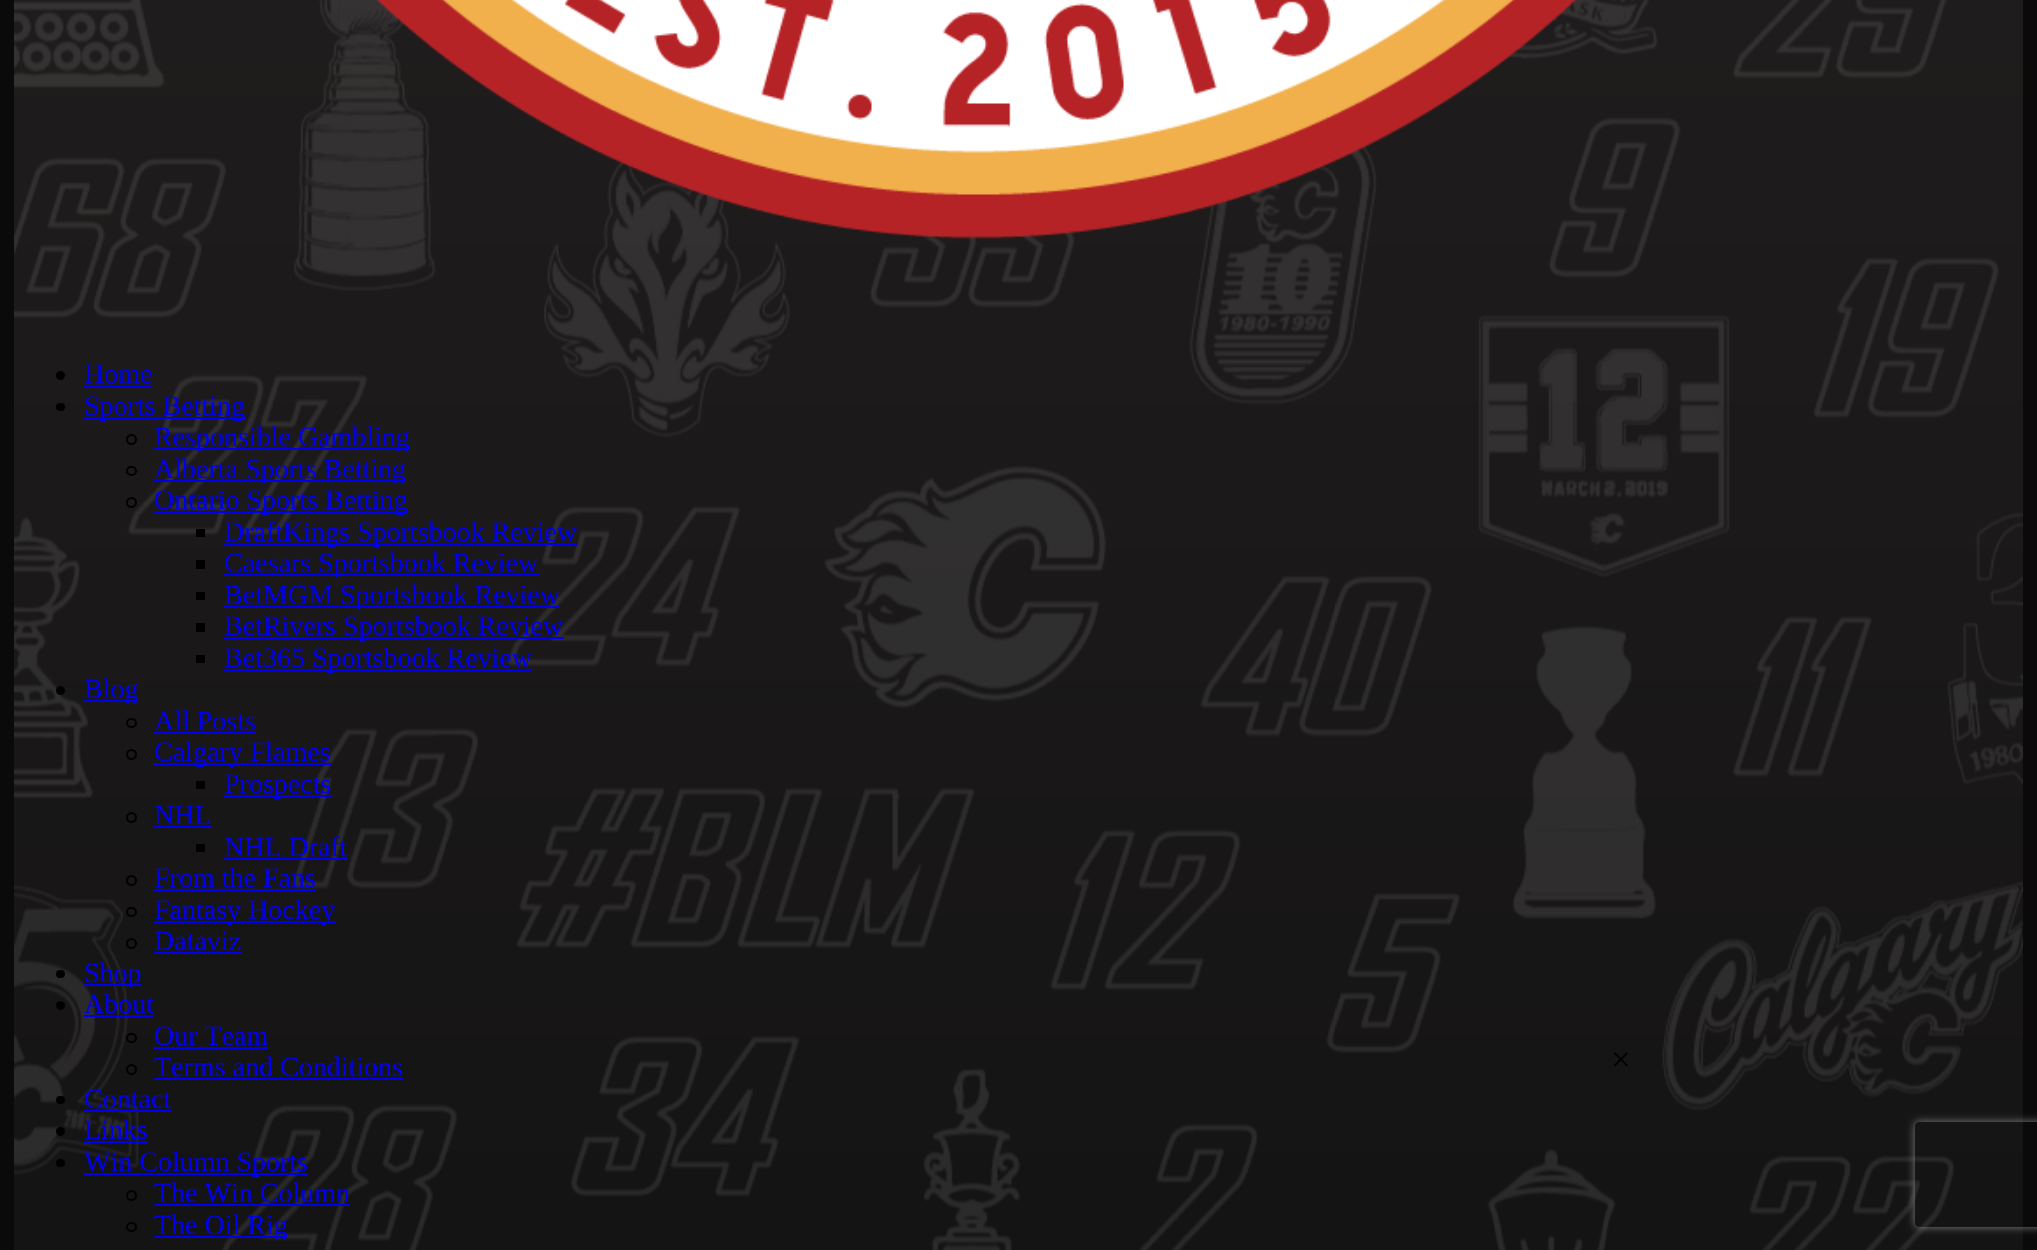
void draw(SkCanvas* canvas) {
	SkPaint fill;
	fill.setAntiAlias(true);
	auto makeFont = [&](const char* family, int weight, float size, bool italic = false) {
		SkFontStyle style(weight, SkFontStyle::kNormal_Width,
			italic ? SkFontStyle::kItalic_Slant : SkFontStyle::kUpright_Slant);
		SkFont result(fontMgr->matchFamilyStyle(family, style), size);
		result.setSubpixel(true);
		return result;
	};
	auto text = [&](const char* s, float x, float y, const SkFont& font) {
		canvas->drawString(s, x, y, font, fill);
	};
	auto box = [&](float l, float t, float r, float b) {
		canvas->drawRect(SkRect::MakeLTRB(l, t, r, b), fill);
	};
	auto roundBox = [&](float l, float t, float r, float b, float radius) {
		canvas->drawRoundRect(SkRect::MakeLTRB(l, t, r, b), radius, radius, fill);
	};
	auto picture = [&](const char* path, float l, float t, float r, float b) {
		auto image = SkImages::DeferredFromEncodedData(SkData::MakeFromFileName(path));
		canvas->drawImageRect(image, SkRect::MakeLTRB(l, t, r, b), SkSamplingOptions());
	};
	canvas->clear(0xFF0A0A0A);
	picture("image0.png", 14, 0, 2023, 1250);
	picture("image1.png", 375, 0, 1577, 239);
	fill.setColor(0xFF000000);
	canvas->drawCircle(60.5f, 375.5f, 4.5f, fill);
	fill.setColor(0xFF0000EE);
	box(84, 385, 152, 387);
	fill.setColor(0xFF000000);
	roundBox(56, 403, 65, 411, 4);
	fill.setColor(0xFF0000EE);
	box(84, 417, 245, 419);
	fill.setStyle(SkPaint::kStroke_Style);
	fill.setStrokeWidth(2);
	fill.setColor(0xFF000000);
	canvas->drawCircle(131.5f, 439.5f, 4.5f, fill);
	fill.setStyle(SkPaint::kFill_Style);
	fill.setColor(0xFF0000EE);
	box(154, 448, 410, 450);
	fill.setStyle(SkPaint::kStroke_Style);
	fill.setColor(0xFF000000);
	canvas->drawRoundRect(SkRect::MakeLTRB(127, 467, 136, 475), 4, 4, fill);
	fill.setStyle(SkPaint::kFill_Style);
	fill.setColor(0xFF0000EE);
	box(154, 480, 406, 482);
	fill.setStyle(SkPaint::kStroke_Style);
	fill.setColor(0xFF000000);
	canvas->drawCircle(131.5f, 502.5f, 4.5f, fill);
	fill.setStyle(SkPaint::kFill_Style);
	fill.setColor(0xFF0000EE);
	box(154, 511, 408, 513);
	fill.setColor(0xFF000000);
	box(196, 529, 205, 537);
	fill.setColor(0xFF0000EE);
	box(224, 543, 578, 545);
	fill.setColor(0xFF000000);
	box(196, 560, 205, 569);
	fill.setColor(0xFF0000EE);
	box(224, 574, 539, 576);
	fill.setColor(0xFF000000);
	box(196, 592, 205, 600);
	fill.setColor(0xFF0000EE);
	box(224, 606, 560, 608);
	fill.setColor(0xFF000000);
	box(196, 623, 205, 632);
	fill.setColor(0xFF0000EE);
	box(224, 637, 564, 639);
	fill.setColor(0xFF000000);
	box(196, 655, 205, 663);
	fill.setColor(0xFF0000EE);
	box(224, 669, 532, 671);
	fill.setColor(0xFF000000);
	canvas->drawCircle(60.5f, 690.5f, 4.5f, fill);
	fill.setColor(0xFF0000EE);
	box(84, 700, 138, 702);
	fill.setStyle(SkPaint::kStroke_Style);
	fill.setColor(0xFF000000);
	canvas->drawRoundRect(SkRect::MakeLTRB(127, 719, 136, 727), 4, 4, fill);
	fill.setStyle(SkPaint::kFill_Style);
	fill.setColor(0xFF0000EE);
	box(154, 732, 256, 734);
	fill.setStyle(SkPaint::kStroke_Style);
	fill.setColor(0xFF000000);
	canvas->drawCircle(131.5f, 754.5f, 4.5f, fill);
	fill.setStyle(SkPaint::kFill_Style);
	fill.setColor(0xFF0000EE);
	box(154, 763, 331, 765);
	fill.setColor(0xFF000000);
	box(196, 781, 205, 789);
	fill.setColor(0xFF0000EE);
	box(224, 795, 331, 797);
	fill.setStyle(SkPaint::kStroke_Style);
	fill.setColor(0xFF000000);
	canvas->drawCircle(131.5f, 817.5f, 4.5f, fill);
	fill.setStyle(SkPaint::kFill_Style);
	fill.setColor(0xFF0000EE);
	box(154, 826, 212, 828);
	fill.setColor(0xFF000000);
	box(196, 844, 205, 852);
	fill.setColor(0xFF0000EE);
	box(224, 858, 348, 860);
	fill.setStyle(SkPaint::kStroke_Style);
	fill.setColor(0xFF000000);
	canvas->drawCircle(131.5f, 880.5f, 4.5f, fill);
	fill.setStyle(SkPaint::kFill_Style);
	fill.setColor(0xFF0000EE);
	box(154, 889, 315, 891);
	fill.setStyle(SkPaint::kStroke_Style);
	fill.setColor(0xFF000000);
	canvas->drawRoundRect(SkRect::MakeLTRB(127, 908, 136, 916), 4, 4, fill);
	fill.setStyle(SkPaint::kFill_Style);
	fill.setColor(0xFF0000EE);
	box(154, 921, 336, 923);
	fill.setStyle(SkPaint::kStroke_Style);
	fill.setColor(0xFF000000);
	canvas->drawCircle(131.5f, 943.5f, 4.5f, fill);
	fill.setStyle(SkPaint::kFill_Style);
	fill.setColor(0xFF0000EE);
	box(154, 952, 242, 954);
	fill.setColor(0xFF000000);
	roundBox(56, 970, 65, 978, 4);
	fill.setColor(0xFF0000EE);
	box(84, 984, 142, 986);
	fill.setColor(0xFF000000);
	canvas->drawCircle(60.5f, 1005.5f, 4.5f, fill);
	fill.setColor(0xFF0000EE);
	box(84, 1015, 154, 1017);
	fill.setStyle(SkPaint::kStroke_Style);
	fill.setColor(0xFF000000);
	canvas->drawRoundRect(SkRect::MakeLTRB(127, 1034, 136, 1042), 4, 4, fill);
	fill.setStyle(SkPaint::kFill_Style);
	fill.setColor(0xFF0000EE);
	box(154, 1047, 268, 1049);
	fill.setStyle(SkPaint::kStroke_Style);
	fill.setColor(0xFF000000);
	canvas->drawCircle(131.5f, 1069.5f, 4.5f, fill);
	fill.setStyle(SkPaint::kFill_Style);
	fill.setColor(0xFF0000EE);
	box(154, 1078, 403, 1080);
	fill.setColor(0xFF000000);
	roundBox(56, 1096, 65, 1104, 4);
	fill.setColor(0xFF0000EE);
	box(84, 1110, 172, 1112);
	fill.setColor(0xFF000000);
	canvas->drawCircle(60.5f, 1131.5f, 4.5f, fill);
	fill.setColor(0xFF0000EE);
	box(84, 1141, 147, 1143);
	fill.setColor(0xFF000000);
	roundBox(56, 1159, 65, 1167, 4);
	fill.setColor(0xFF0000EE);
	box(84, 1173, 308, 1175);
	fill.setStyle(SkPaint::kStroke_Style);
	fill.setColor(0xFF000000);
	canvas->drawCircle(131.5f, 1195.5f, 4.5f, fill);
	fill.setStyle(SkPaint::kFill_Style);
	fill.setColor(0xFF0000EE);
	box(154, 1204, 350, 1206);
	fill.setStyle(SkPaint::kStroke_Style);
	fill.setColor(0xFF000000);
	canvas->drawRoundRect(SkRect::MakeLTRB(127, 1223, 136, 1231), 4, 4, fill);
	fill.setStyle(SkPaint::kFill_Style);
	fill.setColor(0xFF0000EE);
	box(154, 1236, 287, 1238);
	canvas->save();
	canvas->clipPath(SkPathBuilder(SkPathFillType::kEvenOdd).moveTo(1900, 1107).lineTo(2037, 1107).lineTo(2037, 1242).lineTo(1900, 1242).close().moveTo(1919, 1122).lineTo(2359, 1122).cubicTo(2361, 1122, 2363, 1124, 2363, 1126).lineTo(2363, 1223).cubicTo(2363, 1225, 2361, 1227, 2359, 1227).lineTo(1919, 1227).cubicTo(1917, 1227, 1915, 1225, 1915, 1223).lineTo(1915, 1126).cubicTo(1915, 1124, 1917, 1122, 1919, 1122).close().detach(), true);
	fill.setColor(0xFF808080);
	fill.setMaskFilter(SkMaskFilter::MakeBlur(kNormal_SkBlurStyle, 4.5f));
	canvas->drawRoundRect(SkRect::MakeLTRB(1915, 1122, 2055, 1227), 4, 4, fill);
	fill.setMaskFilter(nullptr);
	canvas->restore();
	auto font1 = makeFont("Liberation Serif", 400, 28);
	fill.setColor(0xFF0000EE);
	text("Home", 84, 383, font1);
	text("Sports Betting", 84, 415, font1);
	text("Responsible Gambling", 154, 446, font1);
	text("Alberta Sports Betting", 154, 478, font1);
	text("Ontario Sports Betting", 154, 509, font1);
	text("DraftKings Sportsbook Review", 224, 541, font1);
	text("Caesars Sportsbook Review", 224, 572, font1);
	text("BetMGM Sportsbook Review", 224, 604, font1);
	text("BetRivers Sportsbook Review", 224, 635, font1);
	text("Bet365 Sportsbook Review", 224, 667, font1);
	text("Blog", 84, 698, font1);
	text("All Posts", 154, 730, font1);
	text("Calgary Flames", 154, 761, font1);
	text("Prospects", 224, 793, font1);
	text("NHL", 154, 824, font1);
	text("NHL Draft", 224, 856, font1);
	text("From the Fans", 154, 887, font1);
	text("Fantasy Hockey", 154, 919, font1);
	text("Dataviz", 154, 950, font1);
	text("Shop", 84, 982, font1);
	text("About", 84, 1013, font1);
	text("Our Team", 154, 1045, font1);
	text("Terms and Conditions", 154, 1076, font1);
	text("Contact", 84, 1108, font1);
	text("Links", 84, 1139, font1);
	text("Win Column Sports", 84, 1171, font1);
	text("The Win Column", 154, 1202, font1);
	text("The Oil Rig", 154, 1234, font1);
	auto font2 = makeFont("Liberation Serif", 400, 35);
	fill.setColor(0xFF000000);
	text("×", 1611, 1071, font2);
}
